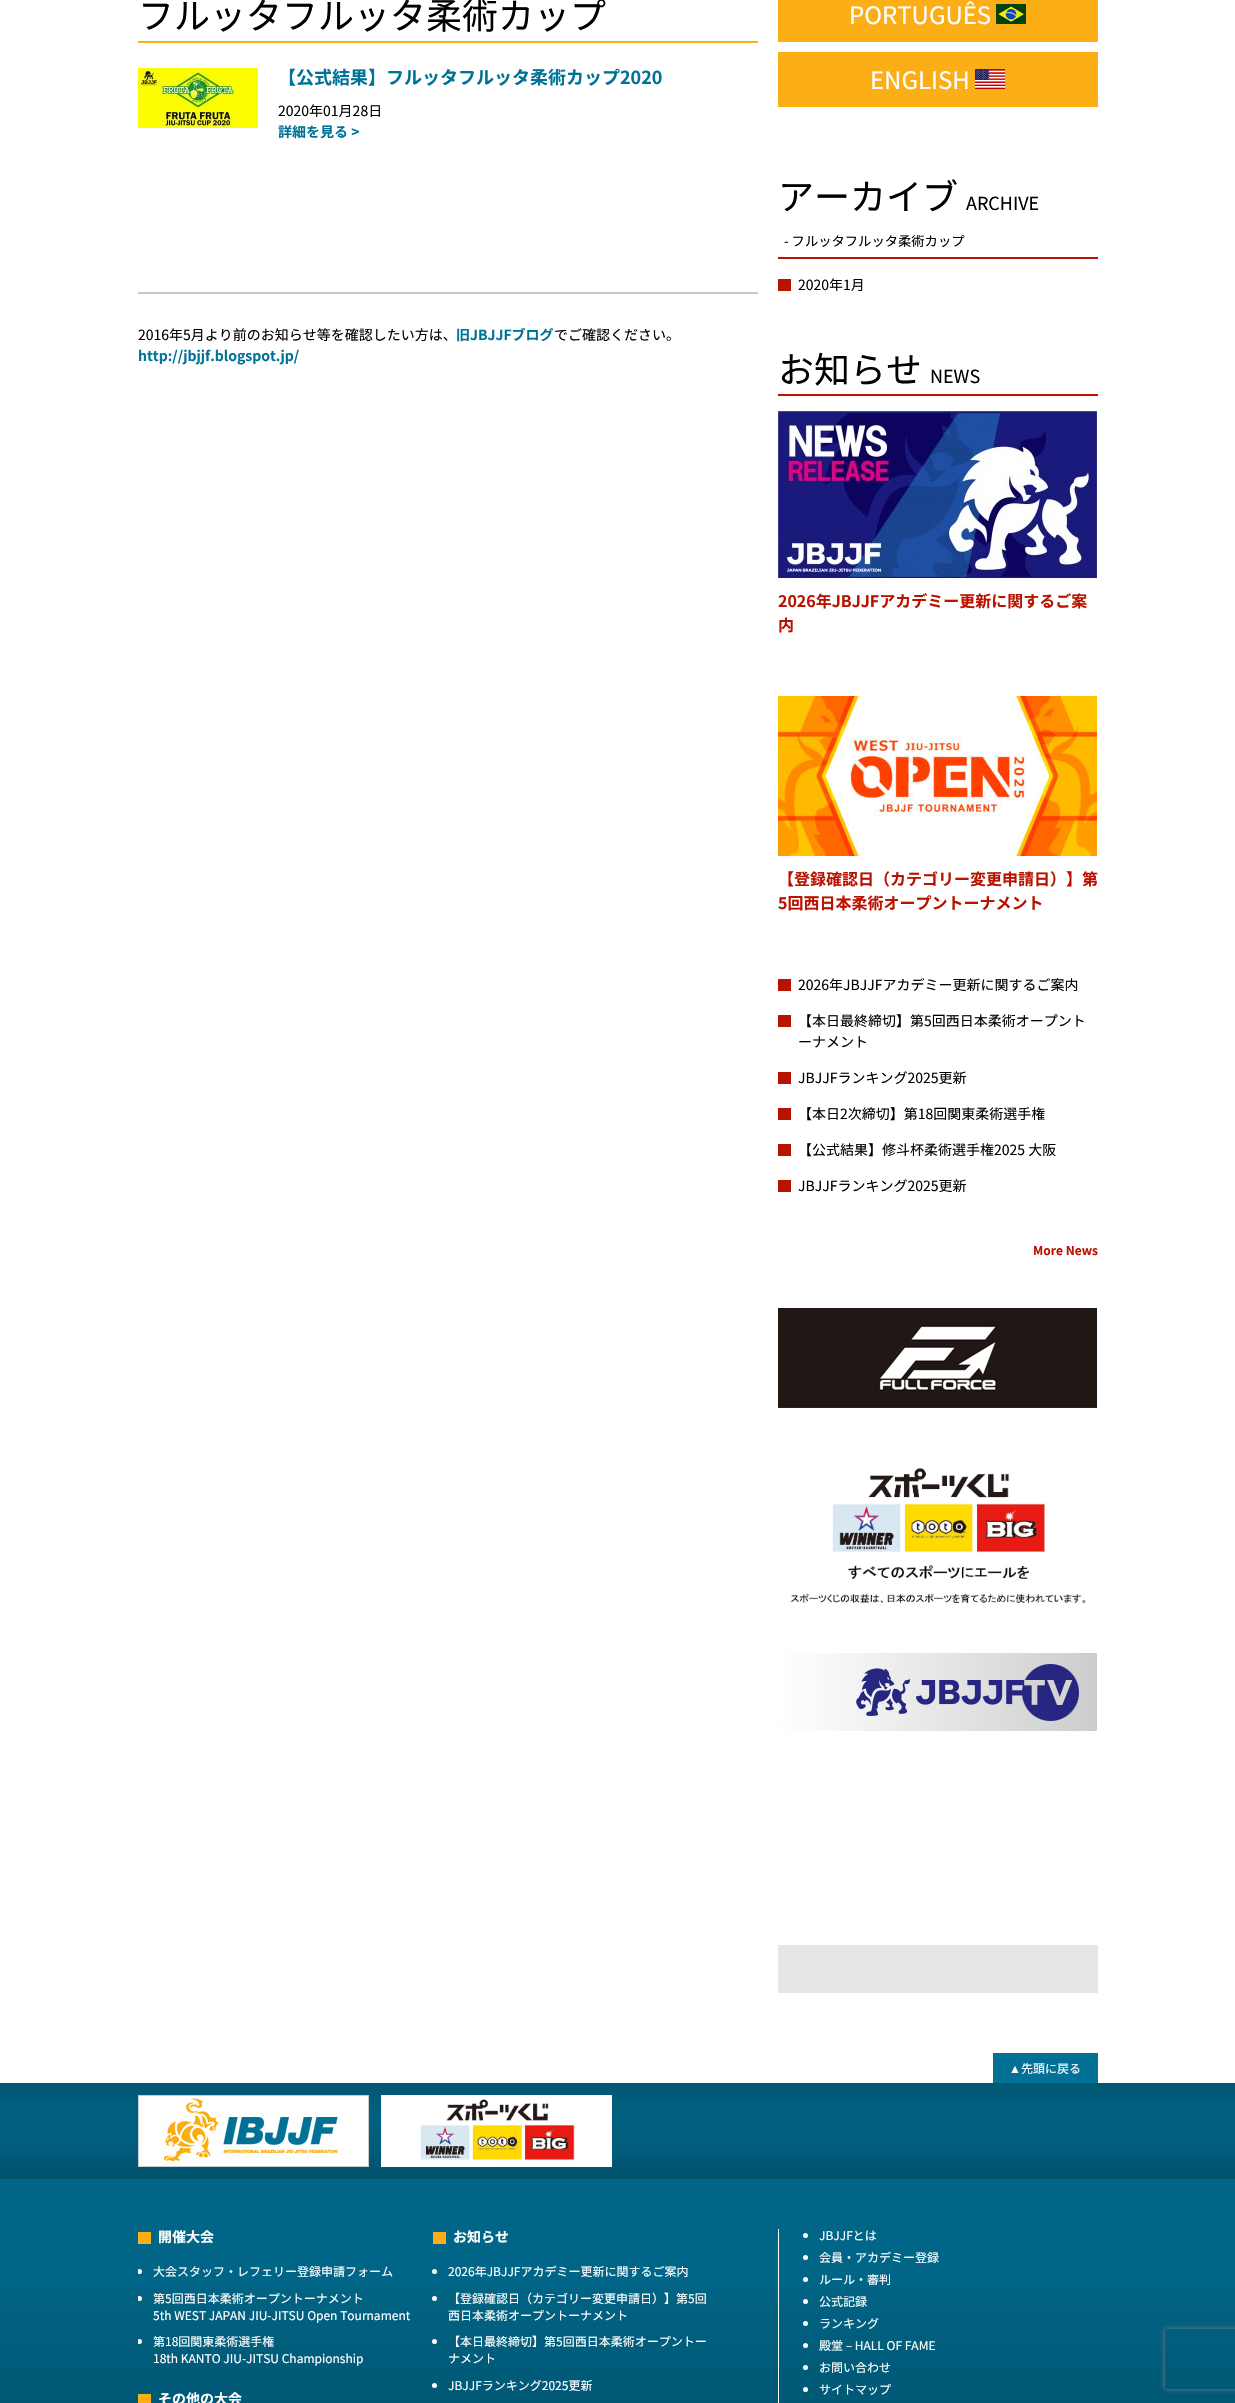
void draw(SkCanvas* canvas) {
	SkPaint fill;
	fill.setAntiAlias(true);
	auto makeFont = [&](const char* family, int weight, float size, bool italic = false) {
		SkFontStyle style(weight, SkFontStyle::kNormal_Width,
			italic ? SkFontStyle::kItalic_Slant : SkFontStyle::kUpright_Slant);
		SkFont result(fontMgr->matchFamilyStyle(family, style), size);
		result.setSubpixel(true);
		return result;
	};
	auto text = [&](const char* s, float x, float y, const SkFont& font) {
		canvas->drawString(s, x, y, font, fill);
	};
	auto box = [&](float l, float t, float r, float b) {
		canvas->drawRect(SkRect::MakeLTRB(l, t, r, b), fill);
	};
	auto picture = [&](const char* path, float l, float t, float r, float b) {
		auto image = SkImages::DeferredFromEncodedData(SkData::MakeFromFileName(path));
		canvas->drawImageRect(image, SkRect::MakeLTRB(l, t, r, b), SkSamplingOptions());
	};
	canvas->clear(0xFFFFFFFF);
	fill.setColor(0xFFFCAE17);
	box(138, 41, 758, 43);
	picture("image0.png", 138, 68, 258, 128);
	fill.setColor(0xFFC8C8C8);
	box(138, 292, 758, 294);
	fill.setColor(0xFFFCAE17);
	box(778, 0, 1098, 42);
	picture("image1.png", 996, 4, 1026, 24);
	box(778, 52, 1098, 107);
	picture("image2.png", 975, 69, 1005, 89);
	fill.setColor(0xFFB91300);
	box(778, 257, 1098, 259);
	box(778, 279, 791, 291);
	box(778, 394, 1098, 396);
	picture("image3.png", 778, 411, 1097, 578);
	picture("image4.png", 778, 696, 1097, 856);
	box(778, 979, 791, 991);
	box(778, 1015, 791, 1027);
	box(778, 1072, 791, 1084);
	box(778, 1108, 791, 1120);
	box(778, 1144, 791, 1156);
	box(778, 1180, 791, 1192);
	picture("image5.png", 778, 1308, 1097, 1408);
	picture("image6.png", 790, 1468, 1086, 1603);
	picture("image7.png", 778, 1653, 1097, 1731);
	fill.setColor(0xFFE6E6E6);
	box(778, 1945, 1098, 1993);
	fill.setColor(0xFF017195);
	box(993, 2053, 1098, 2083);
	fill.setColor(0xFF016587);
	box(0, 2179, 1235, 2287);
	picture("image8.png", 0, 2287, 1235, 2403);
	picture("image9.png", 0, 2083, 1235, 2179);
	picture("image10.png", 138, 2095, 369, 2167);
	picture("image11.png", 381, 2095, 612, 2167);
	fill.setColor(0xFFFCAE17);
	box(138, 2232, 151, 2244);
	canvas->save();
	canvas->clipRect(SkRect::MakeLTRB(138, 2229, 753, 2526));
	fill.setColor(0xFFFFFFFF);
	canvas->drawCircle(139.5f, 2271.5f, 2.5f, fill);
	canvas->drawCircle(139.5f, 2298.5f, 2.5f, fill);
	canvas->drawCircle(139.5f, 2341.5f, 2.5f, fill);
	canvas->restore();
	fill.setColor(0xFFFCAE17);
	box(138, 2394, 151, 2403);
	box(433, 2232, 446, 2244);
	fill.setColor(0xFFFFFFFF);
	canvas->drawCircle(434.5f, 2271.5f, 2.5f, fill);
	canvas->drawCircle(434.5f, 2298.5f, 2.5f, fill);
	canvas->drawCircle(434.5f, 2341.5f, 2.5f, fill);
	canvas->drawCircle(434.5f, 2385.5f, 2.5f, fill);
	box(778, 2229, 779, 2403);
	canvas->drawCircle(805.5f, 2235.5f, 2.5f, fill);
	canvas->drawCircle(805.5f, 2257.5f, 2.5f, fill);
	canvas->drawCircle(805.5f, 2279.5f, 2.5f, fill);
	canvas->drawCircle(805.5f, 2301.5f, 2.5f, fill);
	canvas->drawCircle(805.5f, 2323.5f, 2.5f, fill);
	canvas->drawCircle(805.5f, 2345.5f, 2.5f, fill);
	canvas->drawCircle(805.5f, 2367.5f, 2.5f, fill);
	canvas->drawCircle(805.5f, 2389.5f, 2.5f, fill);
	canvas->save();
	canvas->clipPath(SkPathBuilder(SkPathFillType::kEvenOdd).moveTo(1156, 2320).lineTo(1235, 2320).lineTo(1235, 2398).lineTo(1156, 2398).close().moveTo(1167, 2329).lineTo(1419, 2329).cubicTo(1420, 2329, 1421, 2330, 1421, 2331).lineTo(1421, 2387).cubicTo(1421, 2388, 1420, 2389, 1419, 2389).lineTo(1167, 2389).cubicTo(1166, 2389, 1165, 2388, 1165, 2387).lineTo(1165, 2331).cubicTo(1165, 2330, 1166, 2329, 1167, 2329).close().detach(), true);
	fill.setColor(0xFF808080);
	fill.setMaskFilter(SkMaskFilter::MakeBlur(kNormal_SkBlurStyle, 2.5f));
	canvas->drawRoundRect(SkRect::MakeLTRB(1165, 2329, 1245, 2389), 2, 2, fill);
	fill.setMaskFilter(nullptr);
	canvas->restore();
	auto font1 = makeFont("Noto Sans JP", 400, 36);
	fill.setColor(0xFF000000);
	text("フルッタフルッタ柔術カップ", 138, 29, font1);
	auto font2 = makeFont("Noto Sans JP", 700, 18);
	fill.setColor(0xFF007296);
	text("【公式結果】フルッタフルッタ柔術カップ2020", 278, 84, font2);
	auto font3 = makeFont("Noto Sans JP", 400, 14);
	fill.setColor(0xFF000000);
	text("2020年01月28日", 278, 116, font3);
	auto font4 = makeFont("Noto Sans JP", 700, 14);
	fill.setColor(0xFF007296);
	text("詳細を見る >", 278, 137, font4);
	fill.setColor(0xFF000000);
	text("2016年5月より前のお知らせ等を確認したい方は、", 138, 340, font3);
	fill.setColor(0xFF007296);
	text("旧JBJJFブログ", 456, 340, font4);
	fill.setColor(0xFF000000);
	text("でご確認ください。", 554, 340, font3);
	fill.setColor(0xFF007296);
	text("http://jbjjf.blogspot.jp/", 138, 361, font4);
	auto font5 = makeFont("Noto Sans JP", 400, 24);
	fill.setColor(0xFFFFFFFF);
	text("PORTUGUÊS", 849, 24, font5);
	text("ENGLISH", 870, 89, font5);
	fill.setColor(0xFF000000);
	text("アーカイブ", 778, 210, font1);
	auto font6 = makeFont("Noto Sans JP", 400, 18);
	text("ARCHIVE", 966, 210, font6);
	auto font7 = makeFont("Noto Sans JP", 400, 13.3f);
	text("- フルッタフルッタ柔術カップ", 784, 246, font7);
	text("2020年1月", 798, 290, font3);
	text("お知らせ", 778, 383, font1);
	text("NEWS", 930, 383, font6);
	auto font8 = makeFont("Noto Sans JP", 700, 16);
	fill.setColor(0xFFB91300);
	text("2026年JBJJFアカデミー更新に関するご案", 778, 607, font8);
	text("内", 778, 631, font8);
	text("【登録確認日（カテゴリー変更申請日）】第", 778, 885, font8);
	text("5回西日本柔術オープントーナメント", 778, 909, font8);
	fill.setColor(0xFF000000);
	text("2026年JBJJFアカデミー更新に関するご案内", 798, 990, font3);
	text("【本日最終締切】第5回西日本柔術オープント", 798, 1026, font3);
	text("ーナメント", 798, 1047, font3);
	text("JBJJFランキング2025更新", 798, 1083, font3);
	text("【本日2次締切】第18回関東柔術選手権", 798, 1119, font3);
	text("【公式結果】修斗杯柔術選手権2025 大阪", 798, 1155, font3);
	text("JBJJFランキング2025更新", 798, 1191, font3);
	auto font9 = makeFont("Noto Sans JP", 700, 12);
	fill.setColor(0xFFB91300);
	text("More News", 1033, 1255, font9);
	auto font10 = makeFont("Liberation Sans", 400, 12);
	fill.setColor(0xFFFFFFFF);
	text("▲", 1009, 2073, font10);
	auto font11 = makeFont("Noto Sans JP", 400, 12);
	text("先頭に戻る", 1021, 2073, font11);
	text("開催大会", 158, 2242, font4);
	text("大会スタッフ・レフェリー登録申請フォーム", 153, 2276, font11);
	text("第5回西日本柔術オープントーナメント", 153, 2303, font11);
	text("5th WEST JAPAN JIU-JITSU Open Tournament", 153, 2320, font11);
	text("第18回関東柔術選手権", 153, 2346, font11);
	text("18th KANTO JIU-JITSU Championship", 153, 2363, font11);
	text("その他の大会", 158, 2404, font4);
	text("お知らせ", 453, 2242, font4);
	text("2026年JBJJFアカデミー更新に関するご案内", 448, 2276, font11);
	text("【登録確認日（カテゴリー変更申請日）】第5回", 448, 2303, font11);
	text("西日本柔術オープントーナメント", 448, 2320, font11);
	text("【本日最終締切】第5回西日本柔術オープントー", 448, 2346, font11);
	text("ナメント", 448, 2363, font11);
	text("JBJJFランキング2025更新", 448, 2390, font11);
	text("JBJJFとは", 819, 2240, font11);
	text("会員・アカデミー登録", 819, 2262, font11);
	text("ルール・審判", 819, 2284, font11);
	text("公式記録", 819, 2306, font11);
	text("ランキング", 819, 2328, font11);
	text("殿堂 – HALL OF FAME", 819, 2350, font11);
	text("お問い合わせ", 819, 2372, font11);
	text("サイトマップ", 819, 2394, font11);
}
